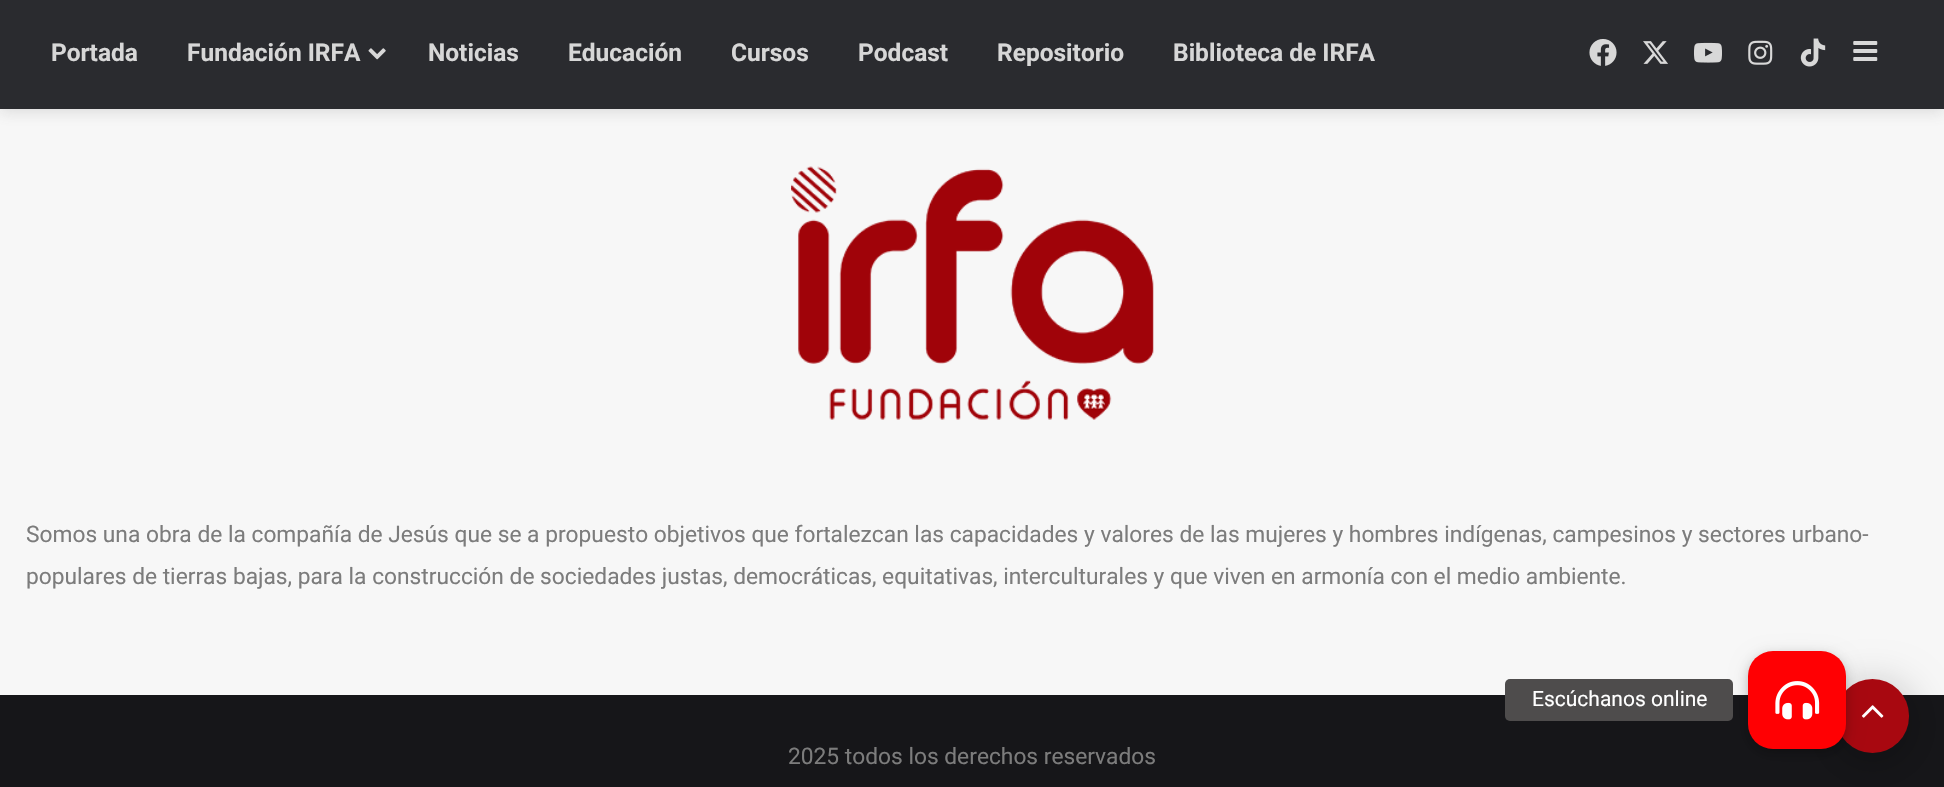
void draw(SkCanvas* canvas) {
	SkPaint fill;
	fill.setAntiAlias(true);
	auto makeFont = [&](const char* family, int weight, float size, bool italic = false) {
		SkFontStyle style(weight, SkFontStyle::kNormal_Width,
			italic ? SkFontStyle::kItalic_Slant : SkFontStyle::kUpright_Slant);
		SkFont result(fontMgr->matchFamilyStyle(family, style), size);
		result.setSubpixel(true);
		return result;
	};
	auto text = [&](const char* s, float x, float y, const SkFont& font) {
		canvas->drawString(s, x, y, font, fill);
	};
	auto box = [&](float l, float t, float r, float b) {
		canvas->drawRect(SkRect::MakeLTRB(l, t, r, b), fill);
	};
	auto roundBox = [&](float l, float t, float r, float b, float radius) {
		canvas->drawRoundRect(SkRect::MakeLTRB(l, t, r, b), radius, radius, fill);
	};
	auto picture = [&](const char* path, float l, float t, float r, float b) {
		auto image = SkImages::DeferredFromEncodedData(SkData::MakeFromFileName(path));
		canvas->drawImageRect(image, SkRect::MakeLTRB(l, t, r, b), SkSamplingOptions());
	};
	canvas->clear(0xFFF7F7F7);
	canvas->save();
	canvas->clipPath(SkPathBuilder(SkPathFillType::kEvenOdd).moveTo(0, 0).lineTo(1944, 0).lineTo(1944, 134).lineTo(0, 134).close().moveTo(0, 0).lineTo(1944, 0).lineTo(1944, 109).lineTo(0, 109).close().detach(), true);
	fill.setColor(0x33636363);
	fill.setMaskFilter(SkMaskFilter::MakeBlur(kNormal_SkBlurStyle, 7));
	canvas->drawRect(SkRect::MakeLTRB(0, 4, 1944, 112), fill);
	fill.setMaskFilter(nullptr);
	canvas->restore();
	fill.setColor(0xF21F2024);
	box(0, 0, 1944, 109);
	picture("image0.png", 368, 48, 386, 60);
	picture("image1.png", 1589, 39, 1617, 66);
	picture("image2.png", 1643, 41, 1668, 64);
	picture("image3.png", 1694, 42, 1722, 63);
	picture("image4.png", 1748, 40, 1773, 65);
	picture("image5.png", 1800, 38, 1826, 67);
	picture("image6.png", 1853, 41, 1878, 61);
	picture("image7.png", 791, 166, 1154, 420);
	fill.setColor(0xFF161619);
	box(0, 695, 1944, 787);
	fill.setColor(0x4D000000);
	fill.setMaskFilter(SkMaskFilter::MakeBlur(kNormal_SkBlurStyle, 22));
	canvas->drawRoundRect(SkRect::MakeLTRB(1836, 688, 1909, 761), 36.5f, 36.5f, fill);
	fill.setMaskFilter(nullptr);
	fill.setColor(0xFFA80810);
	roundBox(1836, 679, 1909, 753, 36.5f);
	picture("image8.png", 1861, 705, 1884, 718);
	fill.setColor(0x1F000000);
	fill.setMaskFilter(SkMaskFilter::MakeBlur(kNormal_SkBlurStyle, 9));
	canvas->drawRoundRect(SkRect::MakeLTRB(1748, 655, 1846, 753), 25, 25, fill);
	fill.setMaskFilter(nullptr);
	fill.setColor(0x29000000);
	fill.setMaskFilter(SkMaskFilter::MakeBlur(kNormal_SkBlurStyle, 4.5f));
	canvas->drawRoundRect(SkRect::MakeLTRB(1748, 655, 1846, 753), 25, 25, fill);
	fill.setMaskFilter(nullptr);
	fill.setColor(0xFFFF0003);
	roundBox(1748, 651, 1846, 749, 25);
	fill.setColor(0xFF4E4C4C);
	roundBox(1505, 679, 1733, 721, 5);
	picture("image9.png", 1775, 681, 1820, 720);
	auto font1 = makeFont("Roboto", 700, 24.5f);
	fill.setColor(0xFFD7D7D7);
	text("Portada", 51, 61, font1);
	text("Fundación IRFA", 187, 61, font1);
	text("Noticias", 428, 61, font1);
	text("Educación", 568, 61, font1);
	text("Cursos", 731, 61, font1);
	text("Podcast", 858, 61, font1);
	text("Repositorio", 997, 61, font1);
	text("Biblioteca de IRFA", 1173, 61, font1);
	auto font2 = makeFont("Roboto", 400, 22.75f);
	fill.setColor(0xFF7C7C7C);
	text("Somos una obra de la compañía de Jesús que se a propuesto objetivos que fortalezcan las capacidades y valores de las mujeres y hombres indígenas, campesinos y sectores urbano-", 26, 542, font2);
	text("populares de tierras bajas, para la construcción de sociedades justas, democráticas, equitativas, interculturales y que viven en armonía con el medio ambiente.", 26, 584, font2);
	text("2025 todos los derechos reservados", 788, 764, font2);
	auto font3 = makeFont("Roboto", 400, 21);
	fill.setColor(0xFFFFFFFF);
	text("Escúchanos online", 1532, 706, font3);
}
